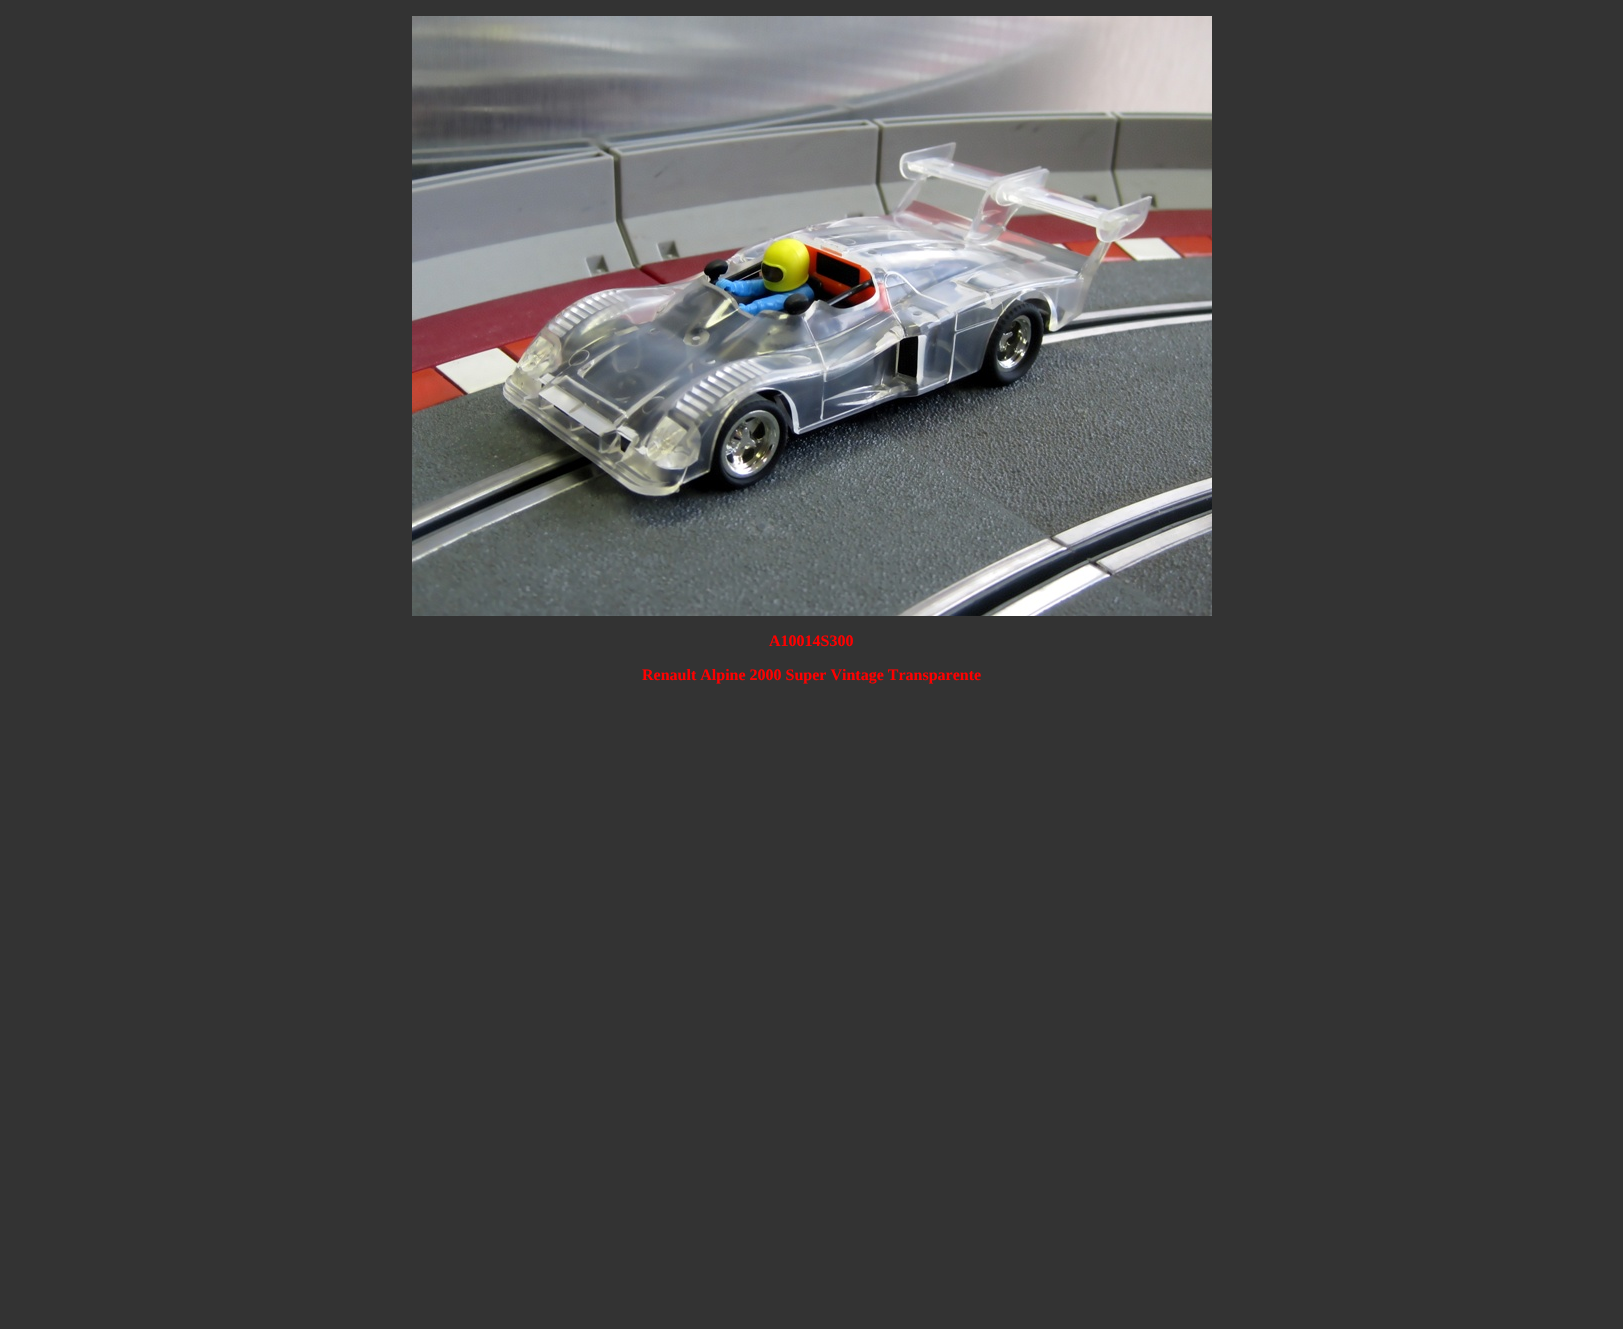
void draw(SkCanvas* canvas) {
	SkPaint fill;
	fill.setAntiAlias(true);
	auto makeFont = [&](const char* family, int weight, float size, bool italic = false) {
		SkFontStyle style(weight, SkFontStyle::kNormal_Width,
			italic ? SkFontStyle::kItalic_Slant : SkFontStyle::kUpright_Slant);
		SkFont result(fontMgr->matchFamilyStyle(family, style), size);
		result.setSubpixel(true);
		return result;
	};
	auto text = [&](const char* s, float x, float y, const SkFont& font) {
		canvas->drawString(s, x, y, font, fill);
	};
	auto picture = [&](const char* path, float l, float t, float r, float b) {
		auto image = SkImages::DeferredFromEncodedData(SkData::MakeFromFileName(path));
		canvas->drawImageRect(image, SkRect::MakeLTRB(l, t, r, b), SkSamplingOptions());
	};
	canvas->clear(0xFF333333);
	picture("image0.png", 412, 16, 1212, 616);
	auto font1 = makeFont("Liberation Serif", 700, 16);
	fill.setColor(0xFFFF0000);
	text("A10014S300", 769, 646, font1);
	text("Renault Alpine 2000 Super Vintage Transparente", 642, 680, font1);
}
